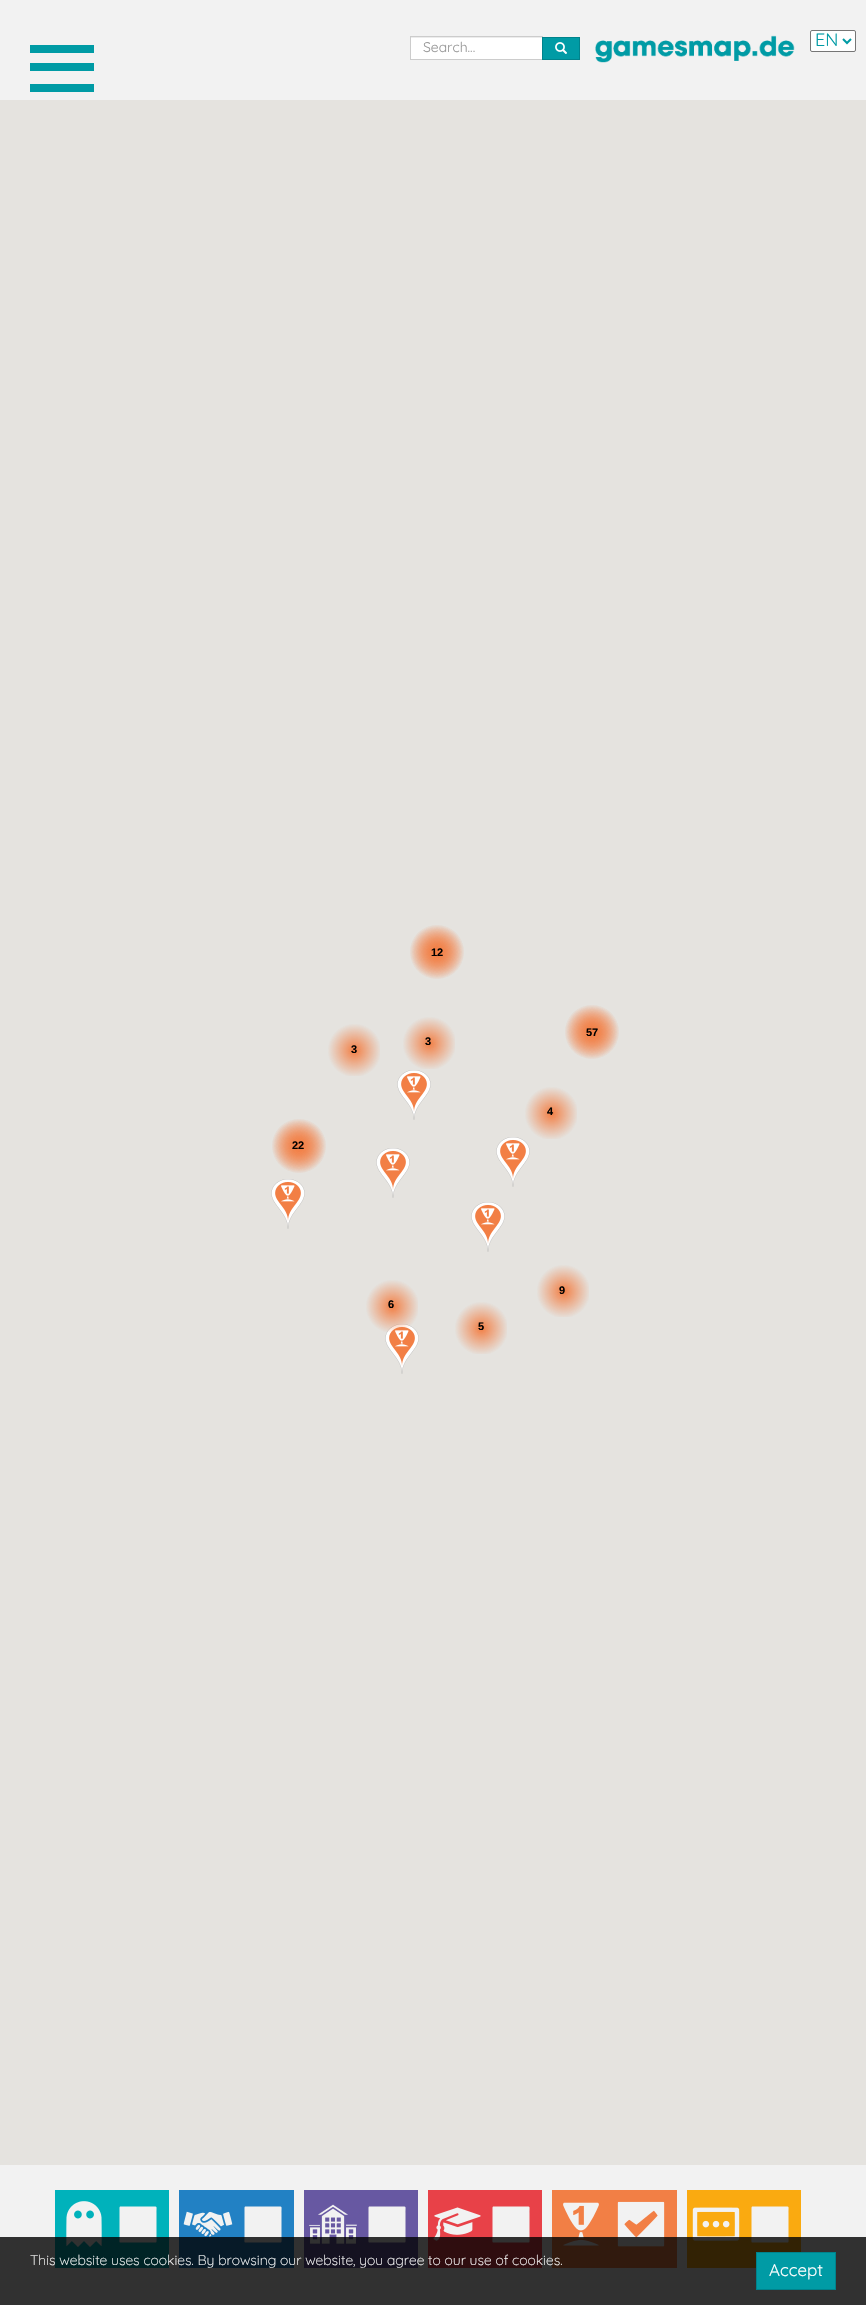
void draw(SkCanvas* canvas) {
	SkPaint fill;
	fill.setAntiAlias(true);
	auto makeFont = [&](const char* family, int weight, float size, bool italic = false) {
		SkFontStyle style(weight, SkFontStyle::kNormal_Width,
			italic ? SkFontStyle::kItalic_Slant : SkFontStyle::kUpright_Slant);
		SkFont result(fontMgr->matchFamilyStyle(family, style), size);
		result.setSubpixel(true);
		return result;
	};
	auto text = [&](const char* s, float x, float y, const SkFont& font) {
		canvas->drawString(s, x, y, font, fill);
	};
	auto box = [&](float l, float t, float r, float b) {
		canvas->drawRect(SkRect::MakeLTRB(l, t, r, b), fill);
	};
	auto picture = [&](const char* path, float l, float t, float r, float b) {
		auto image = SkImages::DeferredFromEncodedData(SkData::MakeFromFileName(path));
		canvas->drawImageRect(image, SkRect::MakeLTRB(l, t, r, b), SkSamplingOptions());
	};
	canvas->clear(0xFFF2F2F2);
	fill.setColor(0xFFFFFFFF);
	box(411, 38, 542, 59);
	fill.setColor(0xFFECECEC);
	box(411, 37, 542, 38);
	fill.setStyle(SkPaint::kStroke_Style);
	fill.setStrokeWidth(1);
	fill.setColor(0xFFCCCCCC);
	canvas->drawRect(SkRect::MakeLTRB(410.5f, 36.5f, 542.5f, 59.5f), fill);
	fill.setStyle(SkPaint::kFill_Style);
	fill.setColor(0xFF009BA5);
	canvas->drawRect(SkRect::MakeLTRB(542.5f, 37.5f, 579.5f, 59.5f), fill);
	fill.setStyle(SkPaint::kStroke_Style);
	fill.setColor(0xFF00838C);
	canvas->drawRect(SkRect::MakeLTRB(542.5f, 37.5f, 579.5f, 59.5f), fill);
	picture("image0.png", 555, 42, 567, 54);
	picture("image1.png", 595, 35, 795, 63);
	fill.setStyle(SkPaint::kFill_Style);
	fill.setColor(0xFFFFFFFF);
	canvas->drawRoundRect(SkRect::MakeLTRB(810.5f, 30.5f, 855.5f, 51.5f), 1.5f, 1.5f, fill);
	fill.setStyle(SkPaint::kStroke_Style);
	fill.setColor(0xFF767676);
	canvas->drawRoundRect(SkRect::MakeLTRB(810.5f, 30.5f, 855.5f, 51.5f), 1.5f, 1.5f, fill);
	fill.setStrokeWidth(2);
	fill.setColor(0xFF009BA5);
	canvas->drawPath(SkPathBuilder().moveTo(843, 39).lineTo(847, 43).lineTo(851, 39).detach(), fill);
	fill.setStyle(SkPaint::kFill_Style);
	box(30, 45, 94, 53);
	box(30, 63, 94, 71);
	box(30, 84, 94, 92);
	fill.setColor(0xFFE5E3DF);
	box(0, 100, 866, 2165);
	picture("image2.png", 410, 925, 464, 979);
	picture("image2.png", 565, 1005, 619, 1059);
	picture("image3.png", 403, 1017, 455, 1069);
	picture("image3.png", 328, 1024, 380, 1076);
	picture("image5.png", 496, 1137, 530, 1187);
	picture("image3.png", 525, 1087, 577, 1139);
	picture("image2.png", 272, 1119, 326, 1173);
	picture("image3.png", 537, 1265, 589, 1317);
	picture("image5.png", 385, 1324, 419, 1374);
	picture("image4.png", 366, 1280, 418, 1332);
	picture("image3.png", 455, 1302, 507, 1354);
	picture("image5.png", 397, 1070, 431, 1120);
	picture("image5.png", 376, 1148, 410, 1198);
	picture("image5.png", 271, 1179, 305, 1229);
	picture("image5.png", 471, 1202, 505, 1252);
	fill.setColor(0xFF00B2BB);
	box(55, 2190, 169, 2268);
	picture("image6.png", 66, 2201, 102, 2247);
	fill.setColor(0xFFF2F2F2);
	canvas->drawPath(SkPathBuilder().moveTo(120, 2206.5f).lineTo(150, 2206.5f).cubicTo(158, 2206.5f, 156.5f, 2205, 156.5f, 2213).lineTo(156.5f, 2236).cubicTo(156.5f, 2244, 158, 2242.5f, 150, 2242.5f).lineTo(126, 2242.5f).cubicTo(118, 2242.5f, 119.5f, 2244, 119.5f, 2236).lineTo(119.5f, 2207.5f).close().detach(), fill);
	fill.setColor(0xFF2281C4);
	box(179, 2190, 294, 2268);
	picture("image7.png", 183, 2211, 233, 2237);
	fill.setColor(0xFFF2F2F2);
	canvas->drawPath(SkPathBuilder().moveTo(245, 2206.5f).lineTo(275, 2206.5f).cubicTo(283, 2206.5f, 281.5f, 2205, 281.5f, 2213).lineTo(281.5f, 2236).cubicTo(281.5f, 2244, 283, 2242.5f, 275, 2242.5f).lineTo(251, 2242.5f).cubicTo(243, 2242.5f, 244.5f, 2244, 244.5f, 2236).lineTo(244.5f, 2207.5f).close().detach(), fill);
	fill.setColor(0xFF6758A2);
	box(304, 2190, 418, 2268);
	picture("image8.png", 309, 2204, 357, 2244);
	fill.setColor(0xFFF2F2F2);
	canvas->drawPath(SkPathBuilder().moveTo(369, 2206.5f).lineTo(399, 2206.5f).cubicTo(407, 2206.5f, 405.5f, 2205, 405.5f, 2213).lineTo(405.5f, 2236).cubicTo(405.5f, 2244, 407, 2242.5f, 399, 2242.5f).lineTo(375, 2242.5f).cubicTo(367, 2242.5f, 368.5f, 2244, 368.5f, 2236).lineTo(368.5f, 2207.5f).close().detach(), fill);
	fill.setColor(0xFFE84148);
	box(428, 2190, 542, 2268);
	picture("image9.png", 433, 2207, 481, 2241);
	fill.setColor(0xFFF2F2F2);
	canvas->drawPath(SkPathBuilder().moveTo(493, 2206.5f).lineTo(523, 2206.5f).cubicTo(531, 2206.5f, 529.5f, 2205, 529.5f, 2213).lineTo(529.5f, 2236).cubicTo(529.5f, 2244, 531, 2242.5f, 523, 2242.5f).lineTo(499, 2242.5f).cubicTo(491, 2242.5f, 492.5f, 2244, 492.5f, 2236).lineTo(492.5f, 2207.5f).close().detach(), fill);
	fill.setColor(0xFFF27F45);
	box(552, 2190, 677, 2268);
	picture("image10.png", 563, 2202, 599, 2246);
	picture("image11.png", 617, 2201, 665, 2247);
	fill.setColor(0xFFFAAA10);
	box(687, 2190, 801, 2268);
	picture("image12.png", 692, 2207, 740, 2241);
	fill.setColor(0xFFF2F2F2);
	canvas->drawPath(SkPathBuilder().moveTo(752, 2206.5f).lineTo(782, 2206.5f).cubicTo(790, 2206.5f, 788.5f, 2205, 788.5f, 2213).lineTo(788.5f, 2236).cubicTo(788.5f, 2244, 790, 2242.5f, 782, 2242.5f).lineTo(758, 2242.5f).cubicTo(750, 2242.5f, 751.5f, 2244, 751.5f, 2236).lineTo(751.5f, 2207.5f).close().detach(), fill);
	fill.setColor(0xCC000000);
	box(0, 2237, 866, 2305);
	fill.setColor(0xFF009BA5);
	canvas->drawRect(SkRect::MakeLTRB(756.5f, 2252.5f, 835.5f, 2289.5f), fill);
	fill.setStyle(SkPaint::kStroke_Style);
	fill.setStrokeWidth(1);
	fill.setColor(0xFF00838C);
	canvas->drawRect(SkRect::MakeLTRB(756.5f, 2252.5f, 835.5f, 2289.5f), fill);
	auto font1 = makeFont("Quicksand", 400, 14);
	fill.setStyle(SkPaint::kFill_Style);
	fill.setColor(0xFF999999);
	text("Search...", 423, 52, font1);
	auto font2 = makeFont("Quicksand", 400, 18);
	fill.setColor(0xFF009BA5);
	text("EN", 815, 46, font2);
	auto font3 = makeFont("Liberation Sans", 700, 11);
	fill.setColor(0xFF000000);
	text("12", 431, 956, font3);
	text("57", 586, 1036, font3);
	text("3", 425, 1045, font3);
	text("3", 351, 1053, font3);
	text("4", 547, 1115, font3);
	text("22", 292, 1149, font3);
	text("9", 559, 1294, font3);
	text("6", 388, 1308, font3);
	text("5", 478, 1330, font3);
	auto font4 = makeFont("Quicksand", 300, 14);
	fill.setColor(0xFFFFFFFF);
	text("This website uses cookies. By browsing our website, you agree to our use of cookies.", 30, 2265, font4);
	auto font5 = makeFont("Quicksand", 400, 17);
	text("Accept", 769, 2276, font5);
}
